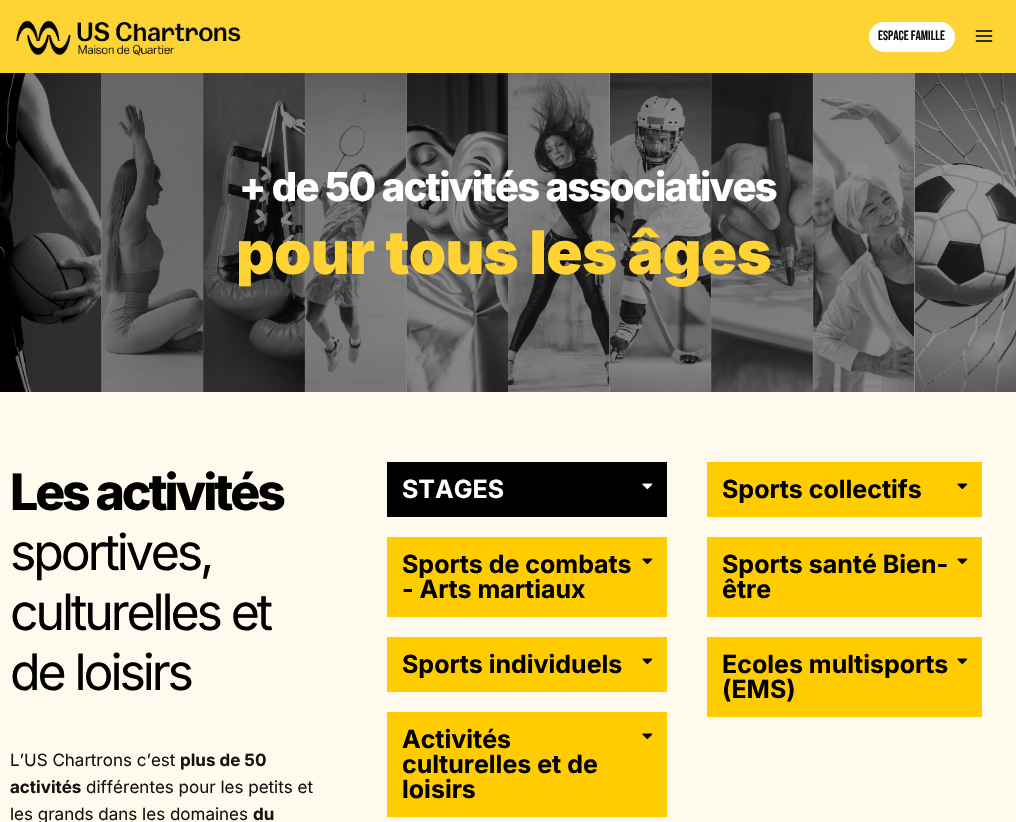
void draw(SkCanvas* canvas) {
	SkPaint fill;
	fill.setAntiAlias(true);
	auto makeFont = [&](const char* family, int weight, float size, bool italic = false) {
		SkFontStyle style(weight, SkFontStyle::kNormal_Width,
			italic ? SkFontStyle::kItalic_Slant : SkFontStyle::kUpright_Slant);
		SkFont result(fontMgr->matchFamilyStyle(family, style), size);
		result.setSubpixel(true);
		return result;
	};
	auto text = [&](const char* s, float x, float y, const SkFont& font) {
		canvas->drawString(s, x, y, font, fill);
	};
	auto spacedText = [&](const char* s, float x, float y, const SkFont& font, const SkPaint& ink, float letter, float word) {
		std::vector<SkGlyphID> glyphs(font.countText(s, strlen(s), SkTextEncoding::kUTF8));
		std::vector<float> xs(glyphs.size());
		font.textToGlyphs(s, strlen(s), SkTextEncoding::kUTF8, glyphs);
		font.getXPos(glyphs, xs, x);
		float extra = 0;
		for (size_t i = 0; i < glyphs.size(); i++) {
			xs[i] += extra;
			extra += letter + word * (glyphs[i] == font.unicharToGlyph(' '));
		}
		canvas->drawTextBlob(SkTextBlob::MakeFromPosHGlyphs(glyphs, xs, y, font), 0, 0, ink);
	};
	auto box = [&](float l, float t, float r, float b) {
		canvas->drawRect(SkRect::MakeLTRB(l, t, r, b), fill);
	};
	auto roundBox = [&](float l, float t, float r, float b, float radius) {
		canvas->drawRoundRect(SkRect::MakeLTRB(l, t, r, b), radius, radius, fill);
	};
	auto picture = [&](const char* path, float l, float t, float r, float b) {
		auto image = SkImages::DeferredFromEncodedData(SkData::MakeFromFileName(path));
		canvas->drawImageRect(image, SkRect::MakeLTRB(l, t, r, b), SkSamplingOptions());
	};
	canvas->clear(0xFFFFFFFF);
	fill.setColor(0xFFFED434);
	box(0, 0, 1016, 73);
	picture("image0.png", 16, 20, 241, 56);
	fill.setColor(0xFFFFFFFF);
	roundBox(869, 22, 955, 52, 15);
	picture("image1.png", 975, 30, 993, 42);
	picture("image2.png", 0, 73, 1016, 392);
	fill.setColor(0xFFFEFAED);
	box(0, 392, 1016, 822);
	fill.setColor(0xFF000000);
	box(387, 462, 667, 517);
	picture("image3.png", 642, 483, 653, 490);
	fill.setColor(0xFFFFCC00);
	box(387, 537, 667, 617);
	picture("image4.png", 642, 558, 653, 565);
	box(387, 637, 667, 692);
	picture("image4.png", 642, 658, 653, 665);
	box(387, 712, 667, 817);
	picture("image4.png", 642, 733, 653, 740);
	box(707, 462, 982, 517);
	picture("image4.png", 957, 483, 968, 490);
	box(707, 537, 982, 617);
	picture("image4.png", 957, 558, 968, 565);
	box(707, 637, 982, 717);
	picture("image4.png", 957, 658, 968, 665);
	auto font1 = makeFont("Bebas Neue", 400, 13.5f);
	fill.setColor(0xFF0A0A0A);
	text("Espace famille", 878, 40, font1);
	auto font2 = makeFont("Inter", 800, 40);
	fill.setColor(0xFFFFFFFF);
	spacedText("+ de 50 activités associatives", 239, 201, font2, fill, -1.7f, 0);
	auto font3 = makeFont("Inter", 900, 60);
	fill.setColor(0xFFFFD334);
	spacedText("pour tous les âges", 236, 274, font3, fill, -0.75f, 0);
	auto font4 = makeFont("Inter", 800, 50);
	fill.setColor(0xFF000000);
	spacedText("Les activités", 10, 510, font4, fill, -3.1f, 0);
	auto font5 = makeFont("Inter", 400, 50);
	spacedText("sportives,", 10, 570, font5, fill, -3.1f, 0);
	spacedText("culturelles et", 10, 630, font5, fill, -3.1f, 0);
	spacedText("de loisirs", 10, 690, font5, fill, -3.1f, 0);
	auto font6 = makeFont("Inter", 400, 17);
	fill.setColor(0xFF141414);
	text("L’US Chartrons c’est", 10, 766, font6);
	auto font7 = makeFont("Inter", 700, 17);
	text("plus de 50", 180, 766, font7);
	text("activités", 10, 793, font7);
	text("différentes pour les petits et", 86, 793, font6);
	text("les grands dans les domaines", 10, 820, font6);
	text("du", 253, 820, font7);
	auto font8 = makeFont("Inter", 700, 25);
	fill.setColor(0xFFFFFFFF);
	text("STAGES", 402, 498, font8);
	fill.setColor(0xFF000000);
	text("Sports de combats", 402, 573, font8);
	text("- Arts martiaux", 402, 598, font8);
	text("Sports individuels", 402, 673, font8);
	text("Activités", 402, 748, font8);
	text("culturelles et de", 402, 773, font8);
	text("loisirs", 402, 798, font8);
	text("Sports collectifs", 722, 498, font8);
	text("Sports santé Bien-", 722, 573, font8);
	text("être", 722, 598, font8);
	text("Ecoles multisports", 722, 673, font8);
	text("(EMS)", 722, 698, font8);
}
